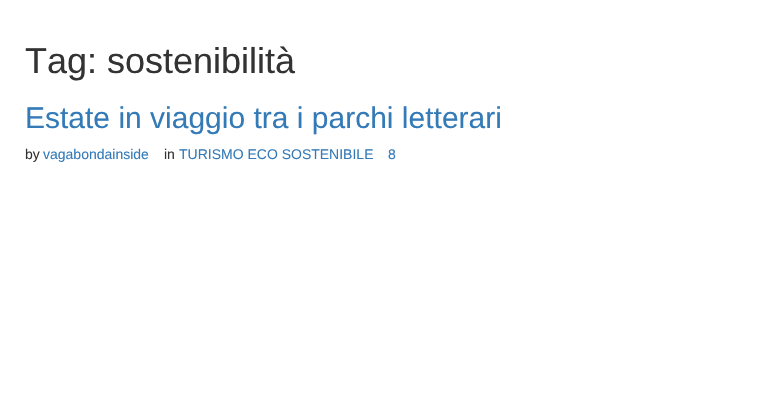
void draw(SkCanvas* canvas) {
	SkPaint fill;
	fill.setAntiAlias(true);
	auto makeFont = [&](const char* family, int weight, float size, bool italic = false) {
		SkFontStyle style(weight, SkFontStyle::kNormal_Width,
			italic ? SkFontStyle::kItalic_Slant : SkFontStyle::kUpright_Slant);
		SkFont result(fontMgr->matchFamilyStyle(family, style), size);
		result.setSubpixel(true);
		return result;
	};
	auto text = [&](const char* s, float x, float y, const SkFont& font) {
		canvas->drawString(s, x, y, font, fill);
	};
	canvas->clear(0xFFFFFFFF);
	auto font1 = makeFont("Liberation Sans", 400, 36);
	fill.setColor(0xFF333333);
	text("Tag: sostenibilità", 25, 73, font1);
	auto font2 = makeFont("Liberation Sans", 400, 30);
	fill.setColor(0xFF337AB7);
	text("Estate in viaggio tra i parchi letterari", 25, 128, font2);
	auto font3 = makeFont("Liberation Sans", 400, 14);
	fill.setColor(0xFF333333);
	text("by", 25, 159, font3);
	fill.setColor(0xFF337AB7);
	text("vagabondainside", 43, 159, font3);
	fill.setColor(0xFF333333);
	text("in", 164, 159, font3);
	fill.setColor(0xFF337AB7);
	text("TURISMO ECO SOSTENIBILE", 179, 159, font3);
	text("8", 388, 159, font3);
}
